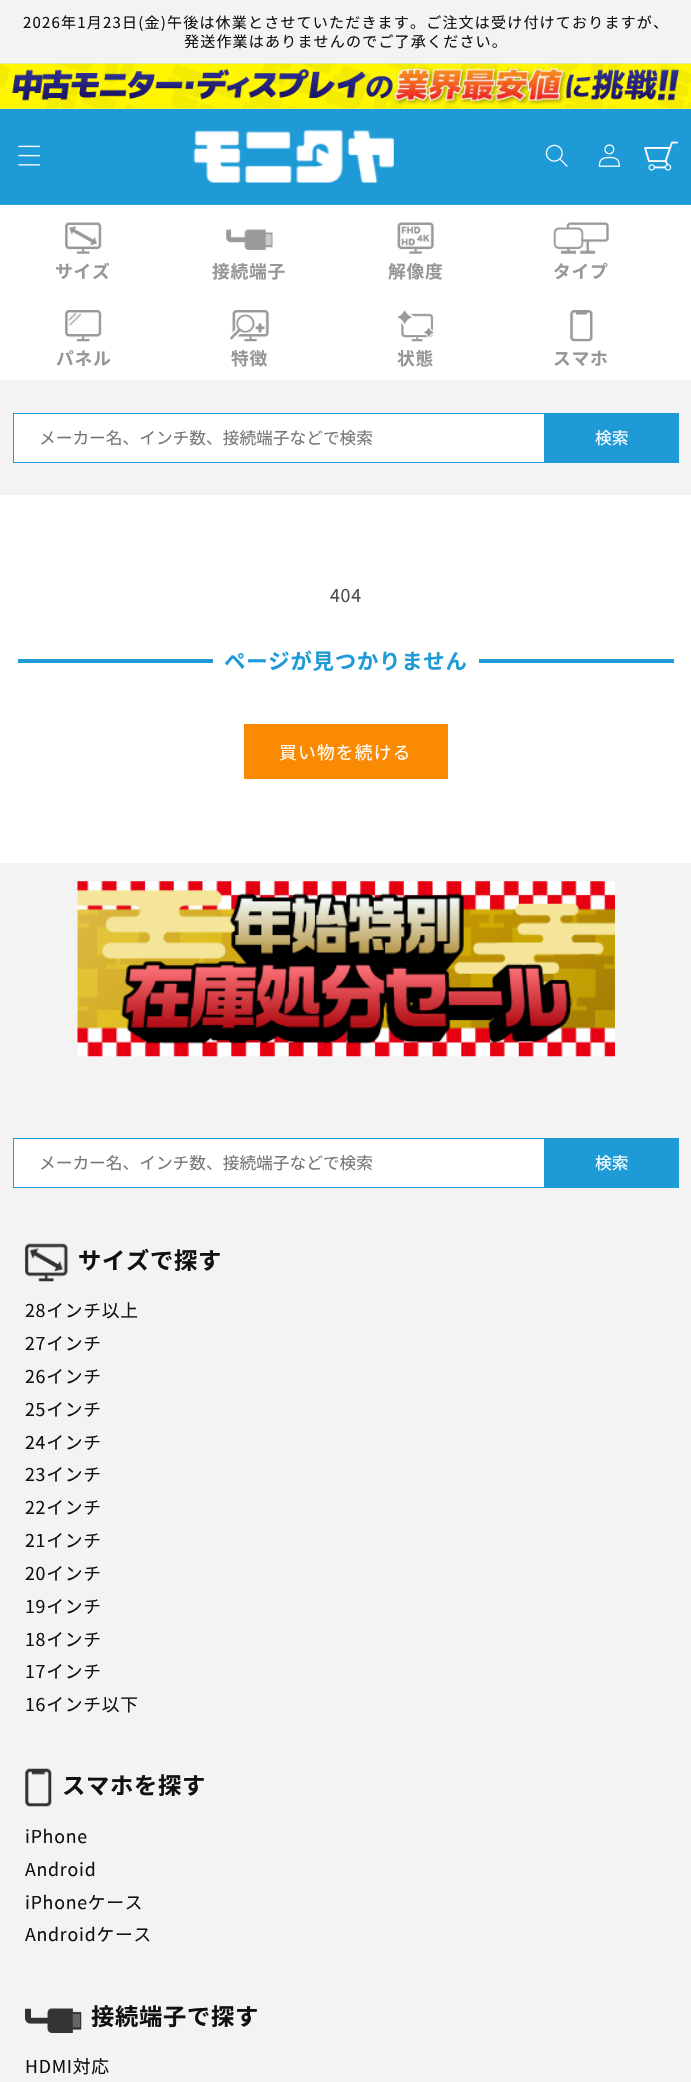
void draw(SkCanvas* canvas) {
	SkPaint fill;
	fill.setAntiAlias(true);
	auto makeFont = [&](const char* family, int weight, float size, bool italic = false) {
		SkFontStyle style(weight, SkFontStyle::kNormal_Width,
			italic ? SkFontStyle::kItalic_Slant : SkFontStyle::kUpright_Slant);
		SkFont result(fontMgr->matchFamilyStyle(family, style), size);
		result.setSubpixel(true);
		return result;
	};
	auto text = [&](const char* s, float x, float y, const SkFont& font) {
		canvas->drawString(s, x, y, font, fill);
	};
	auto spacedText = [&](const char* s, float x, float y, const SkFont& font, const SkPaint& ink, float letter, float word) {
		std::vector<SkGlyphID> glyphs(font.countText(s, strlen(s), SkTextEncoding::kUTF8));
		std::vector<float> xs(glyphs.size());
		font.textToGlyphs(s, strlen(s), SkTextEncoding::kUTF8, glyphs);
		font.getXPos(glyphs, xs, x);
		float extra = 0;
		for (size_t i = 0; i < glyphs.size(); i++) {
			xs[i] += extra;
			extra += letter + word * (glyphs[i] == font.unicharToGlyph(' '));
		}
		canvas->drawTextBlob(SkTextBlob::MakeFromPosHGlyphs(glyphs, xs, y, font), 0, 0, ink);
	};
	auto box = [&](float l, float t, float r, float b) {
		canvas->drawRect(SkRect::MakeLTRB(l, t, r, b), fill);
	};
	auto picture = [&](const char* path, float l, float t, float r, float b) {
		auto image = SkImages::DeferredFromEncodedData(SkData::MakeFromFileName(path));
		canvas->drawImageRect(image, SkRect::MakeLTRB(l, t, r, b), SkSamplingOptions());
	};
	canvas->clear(0xFFFFFFFF);
	fill.setColor(0xFFF3F3F3);
	box(0, 0, 691, 63);
	fill.setColor(0xFFE1E1E1);
	box(0, 63, 691, 64);
	picture("image0.png", 0, 63, 691, 109);
	picture("image1.png", 12, 67, 679, 105);
	fill.setColor(0xFF1E9BD7);
	box(0, 109, 691, 204);
	fill.setColor(0xFF30A3DA);
	box(0, 204, 691, 205);
	picture("image2.png", 18, 145, 41, 166);
	picture("image3.png", 193, 130, 394, 183);
	picture("image4.png", 545, 144, 568, 167);
	picture("image5.png", 598, 144, 620, 167);
	picture("image6.png", 644, 141, 678, 171);
	picture("image7.png", 65, 222, 102, 254);
	picture("image8.png", 226, 229, 273, 250);
	picture("image9.png", 397, 222, 434, 254);
	picture("image10.png", 553, 222, 609, 254);
	picture("image11.png", 65, 310, 102, 342);
	picture("image12.png", 230, 310, 269, 342);
	picture("image13.png", 397, 310, 434, 342);
	picture("image14.png", 570, 310, 593, 342);
	fill.setColor(0xFFF3F3F3);
	box(0, 380, 691, 495);
	fill.setColor(0xFFFFFFFF);
	canvas->drawRect(SkRect::MakeLTRB(13.5f, 413.5f, 544.5f, 462.5f), fill);
	fill.setStyle(SkPaint::kStroke_Style);
	fill.setStrokeWidth(1);
	fill.setColor(0xFF1E9BD7);
	canvas->drawRect(SkRect::MakeLTRB(13.5f, 413.5f, 544.5f, 462.5f), fill);
	fill.setStyle(SkPaint::kFill_Style);
	box(545, 413, 679, 463);
	box(18, 659, 213, 663);
	box(479, 659, 674, 663);
	fill.setColor(0xFFFA8A01);
	box(244, 724, 448, 779);
	fill.setColor(0xFFF3F3F3);
	box(0, 863, 691, 2082);
	picture("image15.png", 77, 881, 615, 1057);
	fill.setColor(0xFFFFFFFF);
	canvas->drawRect(SkRect::MakeLTRB(13.5f, 1138.5f, 544.5f, 1187.5f), fill);
	fill.setStyle(SkPaint::kStroke_Style);
	fill.setColor(0xFF1E9BD7);
	canvas->drawRect(SkRect::MakeLTRB(13.5f, 1138.5f, 544.5f, 1187.5f), fill);
	fill.setStyle(SkPaint::kFill_Style);
	box(545, 1138, 679, 1188);
	picture("image16.png", 25, 1243, 68, 1282);
	picture("image17.png", 25, 1768, 52, 1807);
	picture("image18.png", 25, 2008, 82, 2033);
	auto font1 = makeFont("Noto Sans JP", 400, 15);
	fill.setColor(0xFF111111);
	spacedText("2026年1月23日(金)午後は休業とさせていただきます。ご注文は受け付けておりますが、", 23, 28, font1, fill, 1.2f, 0);
	spacedText("発送作業はありませんのでご了承ください。", 184, 47, font1, fill, 1.2f, 0);
	auto font2 = makeFont("Noto Sans JP", 700, 17.75f);
	fill.setColor(0xFF979797);
	spacedText("サイズ", 55, 278, font2, fill, 0.75f, 0);
	spacedText("接続端子", 212, 278, font2, fill, 0.75f, 0);
	spacedText("解像度", 388, 278, font2, fill, 0.75f, 0);
	spacedText("タイプ", 553, 278, font2, fill, 0.75f, 0);
	spacedText("パネル", 56, 365, font2, fill, 0.75f, 0);
	spacedText("特徴", 231, 365, font2, fill, 0.75f, 0);
	spacedText("状態", 397, 365, font2, fill, 0.75f, 0);
	spacedText("スマホ", 553, 365, font2, fill, 0.75f, 0);
	auto font3 = makeFont("Noto Sans JP", 400, 16.7f);
	fill.setColor(0xFF757575);
	text("メーカー名、インチ数、接続端子などで検索", 39, 444, font3);
	fill.setColor(0xFFFFFFFF);
	text("検索", 595, 444, font3);
	auto font4 = makeFont("Noto Sans JP", 400, 17.75f);
	fill.setColor(0xFF4D4D4D);
	spacedText("404", 330, 602, font4, fill, 0.75f, 0);
	auto font5 = makeFont("Noto Sans JP", 700, 21.4f);
	fill.setColor(0xFF1E9BD7);
	spacedText("ページが見つかりません", 224, 669, font5, fill, 0.75f, 0);
	fill.setColor(0xFFFFFFFF);
	spacedText("買い物を続ける", 279, 759, font4, fill, 1.2f, 0);
	fill.setColor(0xFF757575);
	text("メーカー名、インチ数、接続端子などで検索", 39, 1169, font3);
	fill.setColor(0xFFFFFFFF);
	text("検索", 595, 1169, font3);
	auto font6 = makeFont("Noto Sans JP", 700, 23.25f);
	fill.setColor(0xFF111111);
	spacedText("サイズで探す", 78, 1269, font6, fill, 0.75f, 0);
	spacedText("28インチ以上", 25, 1317, font4, fill, 0.75f, 0);
	spacedText("27インチ", 25, 1350, font4, fill, 0.75f, 0);
	spacedText("26インチ", 25, 1383, font4, fill, 0.75f, 0);
	spacedText("25インチ", 25, 1416, font4, fill, 0.75f, 0);
	spacedText("24インチ", 25, 1449, font4, fill, 0.75f, 0);
	spacedText("23インチ", 25, 1481, font4, fill, 0.75f, 0);
	spacedText("22インチ", 25, 1514, font4, fill, 0.75f, 0);
	spacedText("21インチ", 25, 1547, font4, fill, 0.75f, 0);
	spacedText("20インチ", 25, 1580, font4, fill, 0.75f, 0);
	spacedText("19インチ", 25, 1613, font4, fill, 0.75f, 0);
	spacedText("18インチ", 25, 1646, font4, fill, 0.75f, 0);
	spacedText("17インチ", 25, 1678, font4, fill, 0.75f, 0);
	spacedText("16インチ以下", 25, 1711, font4, fill, 0.75f, 0);
	spacedText("スマホを探す", 62, 1794, font6, fill, 0.75f, 0);
	spacedText("iPhone", 25, 1843, font4, fill, 0.75f, 0);
	spacedText("Android", 25, 1876, font4, fill, 0.75f, 0);
	spacedText("iPhoneケース", 25, 1909, font4, fill, 0.75f, 0);
	spacedText("Androidケース", 25, 1941, font4, fill, 0.75f, 0);
	spacedText("接続端子で探す", 91, 2025, font6, fill, 0.75f, 0);
	spacedText("HDMI対応", 25, 2073, font4, fill, 0.75f, 0);
}
